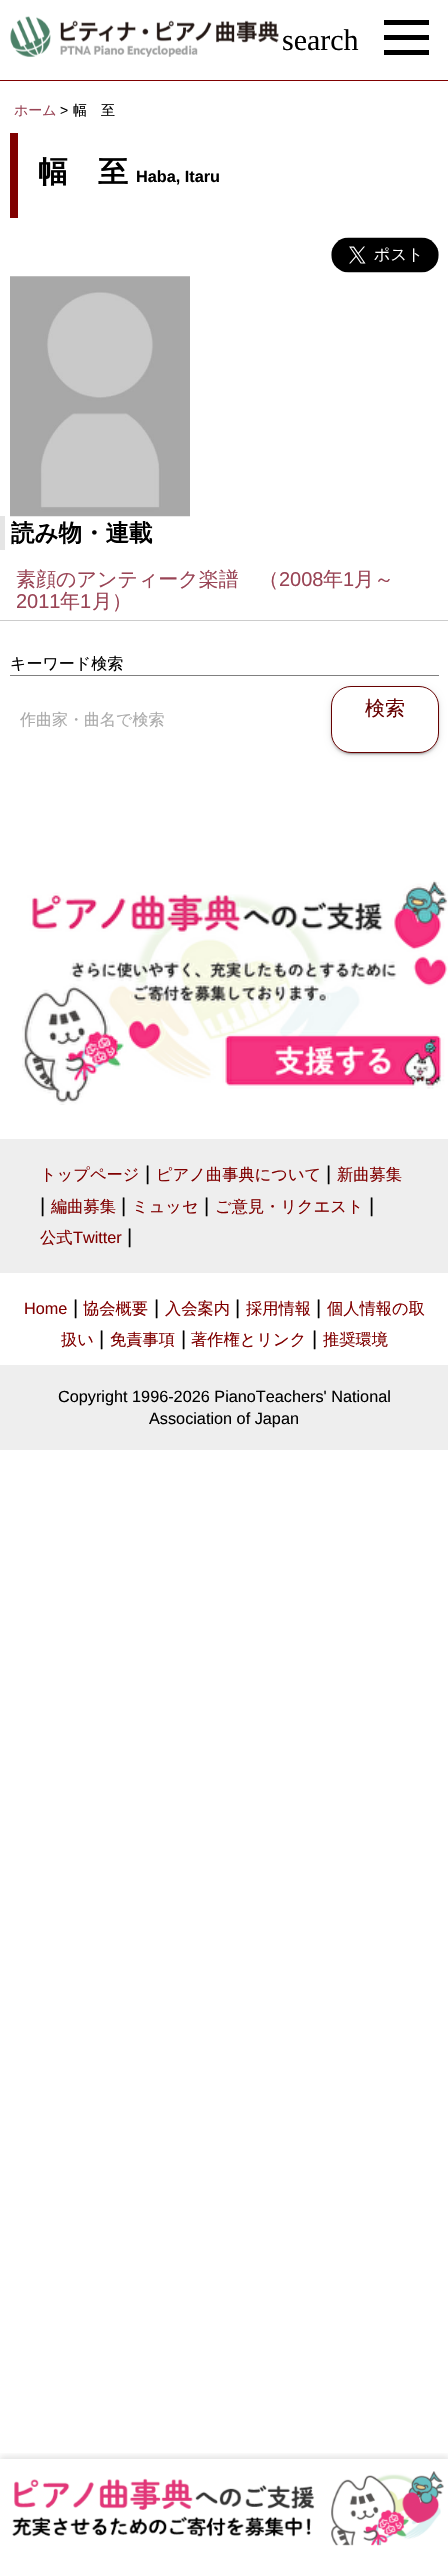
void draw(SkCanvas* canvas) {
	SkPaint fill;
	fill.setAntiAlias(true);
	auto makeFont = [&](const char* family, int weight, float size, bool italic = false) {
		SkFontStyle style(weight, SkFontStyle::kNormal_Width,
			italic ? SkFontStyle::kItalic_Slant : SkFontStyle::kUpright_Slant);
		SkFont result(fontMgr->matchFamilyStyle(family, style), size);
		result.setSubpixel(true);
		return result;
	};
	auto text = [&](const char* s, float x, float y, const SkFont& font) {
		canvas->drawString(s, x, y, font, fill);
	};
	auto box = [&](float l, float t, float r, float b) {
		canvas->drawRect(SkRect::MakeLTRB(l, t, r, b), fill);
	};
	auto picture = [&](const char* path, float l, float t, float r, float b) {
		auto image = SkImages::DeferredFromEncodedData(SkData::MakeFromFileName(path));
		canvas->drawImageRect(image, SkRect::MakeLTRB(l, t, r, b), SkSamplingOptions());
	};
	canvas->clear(0xFFFFFFFF);
	picture("image0.png", 10, 16, 279, 57);
	fill.setColor(0xFF800000);
	box(0, 80, 448, 81);
	fill.setColor(0xFF000000);
	box(384, 20, 429, 25);
	box(384, 35, 429, 40);
	box(384, 50, 429, 55);
	fill.setColor(0xFF800000);
	box(10, 133, 18, 218);
	picture("image1.png", 331, 237, 439, 273);
	picture("image2.png", 10, 276, 190, 517);
	fill.setColor(0xFFE5E5E5);
	box(0, 516, 5, 550);
	fill.setColor(0xFFCCCCCC);
	box(0, 620, 448, 621);
	fill.setColor(0xFF808080);
	box(10, 675, 439, 676);
	fill.setColor(0x33000000);
	fill.setMaskFilter(SkMaskFilter::MakeBlur(kNormal_SkBlurStyle, 0.5f));
	canvas->drawRoundRect(SkRect::MakeLTRB(334, 693, 436, 754), 18, 18, fill);
	fill.setMaskFilter(nullptr);
	fill.setColor(0x1F000000);
	fill.setMaskFilter(SkMaskFilter::MakeBlur(kNormal_SkBlurStyle, 3));
	canvas->drawRoundRect(SkRect::MakeLTRB(331, 688, 439, 754), 20, 20, fill);
	fill.setMaskFilter(nullptr);
	fill.setColor(0x24000000);
	fill.setMaskFilter(SkMaskFilter::MakeBlur(kNormal_SkBlurStyle, 1));
	canvas->drawRoundRect(SkRect::MakeLTRB(331, 689, 439, 755), 20, 20, fill);
	fill.setMaskFilter(nullptr);
	fill.setColor(0xFFFFFFFF);
	canvas->drawRoundRect(SkRect::MakeLTRB(331.5f, 686.5f, 438.5f, 752.5f), 19.5f, 19.5f, fill);
	fill.setStyle(SkPaint::kStroke_Style);
	fill.setStrokeWidth(1);
	fill.setColor(0xFF660000);
	canvas->drawRoundRect(SkRect::MakeLTRB(331.5f, 686.5f, 438.5f, 752.5f), 19.5f, 19.5f, fill);
	picture("image3.png", 22, 880, 448, 1105);
	fill.setStyle(SkPaint::kFill_Style);
	fill.setColor(0xFFEEEEEE);
	box(0, 1139, 448, 1273);
	box(0, 1365, 448, 1450);
	canvas->save();
	canvas->clipRect(SkRect::MakeLTRB(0, 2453, 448, 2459));
	fill.setColor(0x1A000000);
	fill.setMaskFilter(SkMaskFilter::MakeBlur(kNormal_SkBlurStyle, 3));
	canvas->drawRect(SkRect::MakeLTRB(0, 2456, 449, 2560), fill);
	fill.setMaskFilter(nullptr);
	canvas->restore();
	picture("image4.png", 12, 2471, 444, 2546);
	auto font1 = makeFont("Liberation Serif", 400, 30);
	fill.setColor(0xFF000000);
	text("search", 282, 50, font1);
	auto font2 = makeFont("WenQuanYi Zen Hei", 500, 14);
	fill.setColor(0xFF994455);
	text("ホーム", 14, 115, font2);
	auto font3 = makeFont("Liberation Sans", 400, 14);
	fill.setColor(0xFF000000);
	text(">", 60, 115, font3);
	text("幅　至", 73, 115, font2);
	auto font4 = makeFont("WenQuanYi Zen Hei", 700, 30);
	text("幅　至", 38, 182, font4);
	auto font5 = makeFont("Liberation Sans", 700, 16.25f);
	text("Haba, Itaru", 136, 182, font5);
	auto font6 = makeFont("WenQuanYi Zen Hei", 700, 23.5f);
	text("読み物・連載", 11, 541, font6);
	auto font7 = makeFont("WenQuanYi Zen Hei", 500, 20);
	fill.setColor(0xFF994455);
	text("素顔のアンティーク楽譜　（", 16, 586, font7);
	auto font8 = makeFont("Liberation Sans", 400, 20);
	text("2008", 279, 586, font8);
	text("年", 323, 586, font7);
	text("1", 343, 586, font8);
	text("月～", 354, 586, font7);
	text("2011", 16, 608, font8);
	text("年", 60, 608, font7);
	text("1", 80, 608, font8);
	text("月）", 92, 608, font7);
	auto font9 = makeFont("WenQuanYi Zen Hei", 500, 16);
	fill.setColor(0xFF000000);
	text("キーワード検索", 10, 669, font9);
	fill.setColor(0xFFAAAAAA);
	text("作曲家・曲名で検索", 20, 725, font9);
	fill.setColor(0xFF660000);
	text("検索", 365, 715, font7);
	auto font10 = makeFont("WenQuanYi Zen Hei", 500, 16.25f);
	fill.setColor(0xFF800000);
	text("トップページ", 40, 1180, font10);
	fill.setColor(0xFF000000);
	text("|", 145, 1180, font8);
	fill.setColor(0xFF800000);
	text("ピアノ曲事典について", 156, 1180, font10);
	fill.setColor(0xFF000000);
	text("|", 326, 1180, font8);
	fill.setColor(0xFF800000);
	text("新曲募集", 337, 1180, font10);
	fill.setColor(0xFF000000);
	text("|", 40, 1212, font8);
	fill.setColor(0xFF800000);
	text("編曲募集", 51, 1212, font10);
	fill.setColor(0xFF000000);
	text("|", 121, 1212, font8);
	fill.setColor(0xFF800000);
	text("ミュッセ", 132, 1212, font10);
	fill.setColor(0xFF000000);
	text("|", 204, 1212, font8);
	fill.setColor(0xFF800000);
	text("ご意見・リクエスト", 215, 1212, font10);
	fill.setColor(0xFF000000);
	text("|", 369, 1212, font8);
	fill.setColor(0xFF800000);
	text("公式", 40, 1243, font10);
	auto font11 = makeFont("Liberation Sans", 400, 16.25f);
	text("Twitter", 73, 1243, font11);
	fill.setColor(0xFF000000);
	text("|", 127, 1243, font8);
	fill.setColor(0xFF800000);
	text("Home", 24, 1314, font11);
	fill.setColor(0xFF000000);
	text("|", 73, 1314, font8);
	fill.setColor(0xFF800000);
	text("協会概要", 83, 1314, font10);
	fill.setColor(0xFF000000);
	text("|", 154, 1314, font8);
	fill.setColor(0xFF800000);
	text("入会案内", 165, 1314, font10);
	fill.setColor(0xFF000000);
	text("|", 235, 1314, font8);
	fill.setColor(0xFF800000);
	text("採用情報", 246, 1314, font10);
	fill.setColor(0xFF000000);
	text("|", 316, 1314, font8);
	fill.setColor(0xFF800000);
	text("個人情報の取", 327, 1314, font10);
	text("扱い", 61, 1345, font10);
	fill.setColor(0xFF000000);
	text("|", 99, 1345, font8);
	fill.setColor(0xFF800000);
	text("免責事項", 110, 1345, font10);
	fill.setColor(0xFF000000);
	text("|", 181, 1345, font8);
	fill.setColor(0xFF800000);
	text("著作権とリンク", 191, 1345, font10);
	fill.setColor(0xFF000000);
	text("|", 312, 1345, font8);
	fill.setColor(0xFF800000);
	text("推奨環境", 323, 1345, font10);
	fill.setColor(0xFF000000);
	text("Copyright 1996-2026 PianoTeachers' National", 58, 1402, font11);
	text("Association of Japan", 149, 1424, font11);
}
